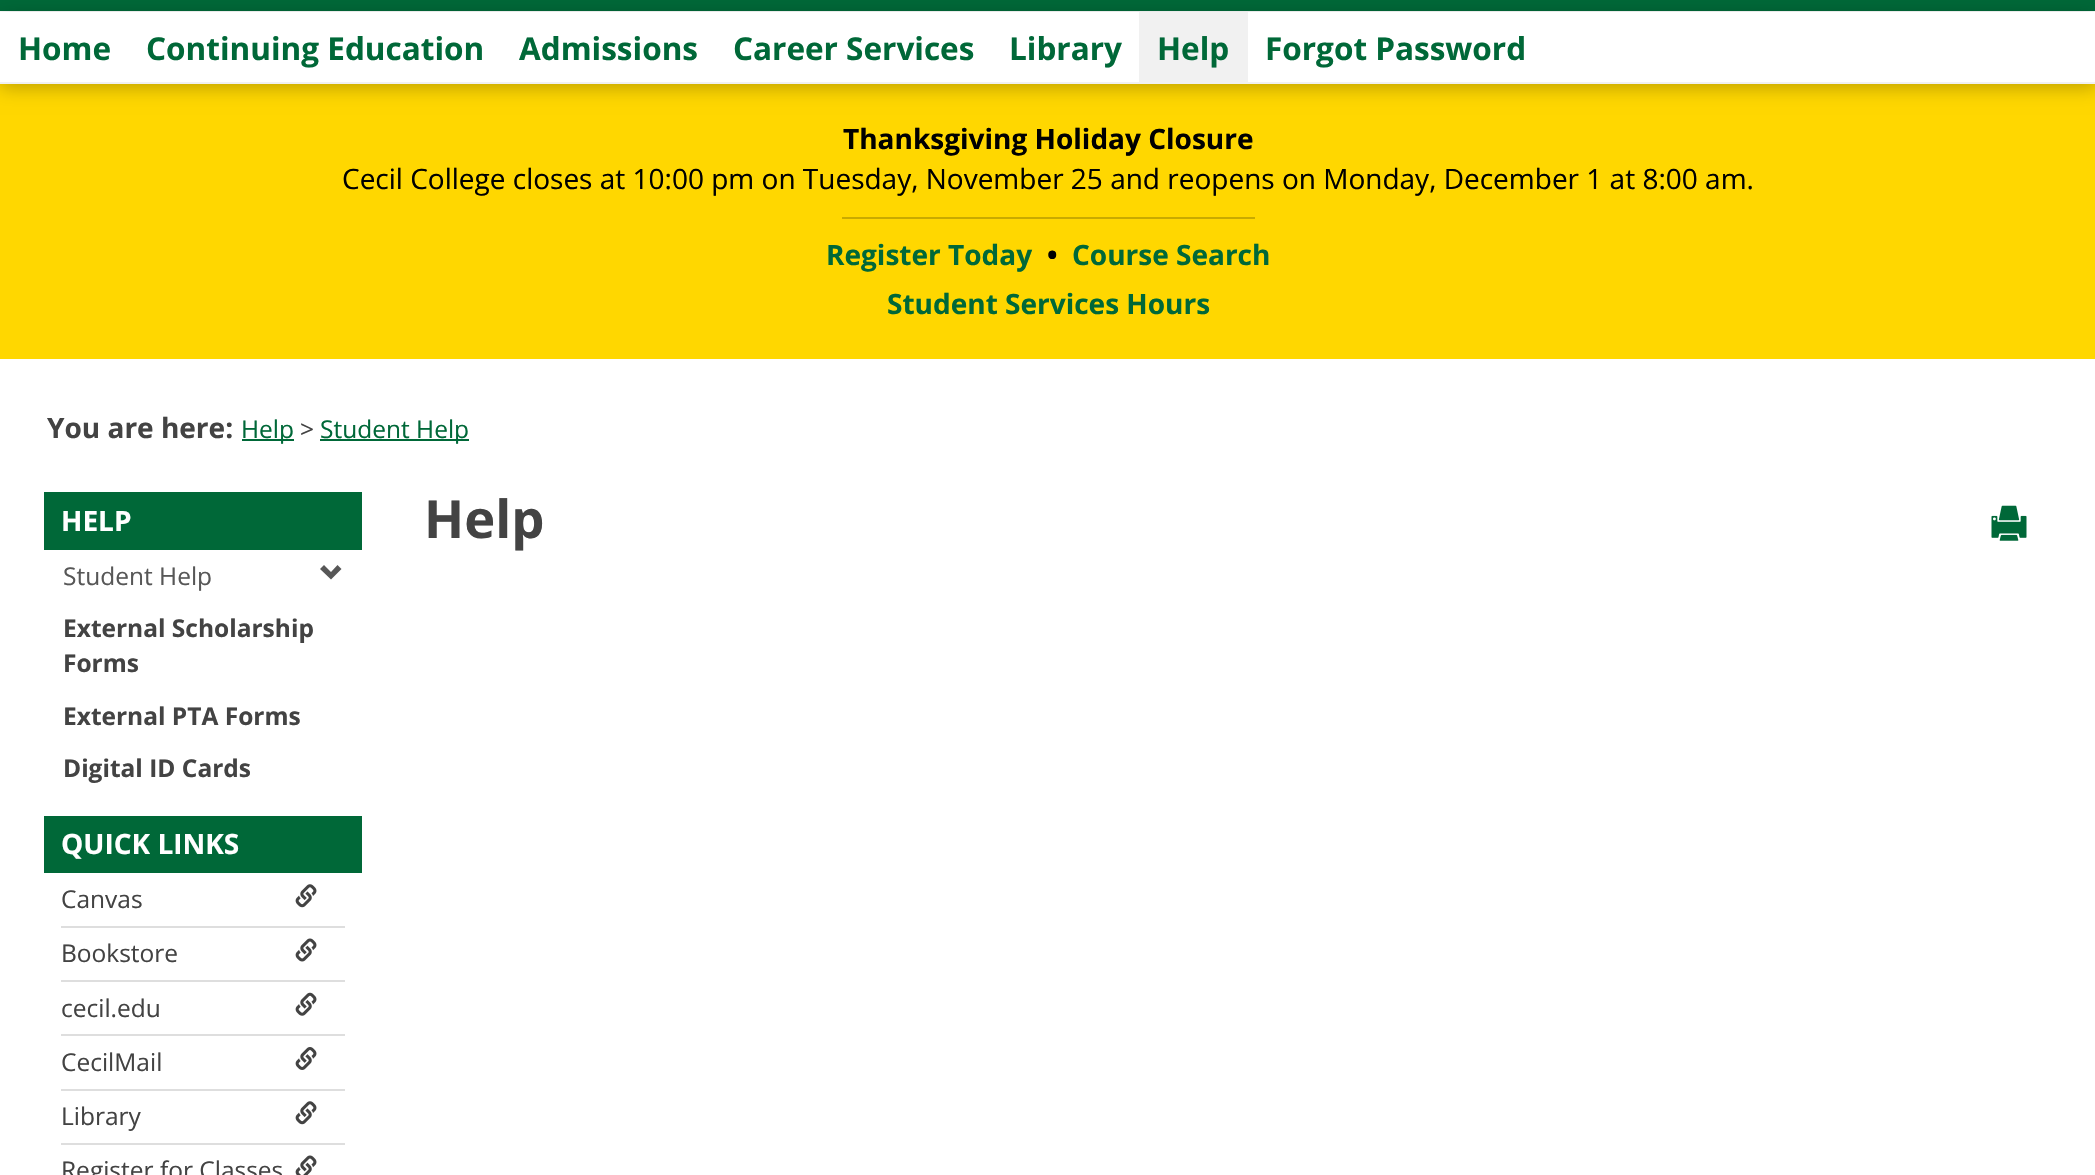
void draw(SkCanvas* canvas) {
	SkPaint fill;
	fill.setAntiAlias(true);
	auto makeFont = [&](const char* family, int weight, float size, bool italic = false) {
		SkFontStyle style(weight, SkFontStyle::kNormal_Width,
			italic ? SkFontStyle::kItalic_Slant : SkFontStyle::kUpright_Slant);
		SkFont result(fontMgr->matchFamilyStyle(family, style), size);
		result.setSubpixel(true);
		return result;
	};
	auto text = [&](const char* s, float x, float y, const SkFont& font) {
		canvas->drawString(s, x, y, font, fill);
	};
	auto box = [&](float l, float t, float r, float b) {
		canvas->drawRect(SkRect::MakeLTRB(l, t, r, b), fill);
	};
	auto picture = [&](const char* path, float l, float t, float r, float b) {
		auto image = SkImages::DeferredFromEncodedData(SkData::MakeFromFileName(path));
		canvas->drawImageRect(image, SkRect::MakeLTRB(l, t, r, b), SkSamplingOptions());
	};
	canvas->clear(0xFFFFFFFF);
	fill.setColor(0xFF006838);
	box(0, 0, 2095, 11);
	fill.setColor(0xFFFFD700);
	box(0, 84, 2095, 359);
	canvas->save();
	canvas->clipPath(SkPathBuilder(SkPathFillType::kEvenOdd).moveTo(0, 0).lineTo(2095, 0).lineTo(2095, 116).lineTo(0, 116).close().moveTo(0, 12).lineTo(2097, 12).lineTo(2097, 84).lineTo(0, 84).close().detach(), true);
	fill.setColor(0x40000000);
	fill.setMaskFilter(SkMaskFilter::MakeBlur(kNormal_SkBlurStyle, 9));
	canvas->drawRect(SkRect::MakeLTRB(0, 16, 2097, 88), fill);
	fill.setMaskFilter(nullptr);
	canvas->restore();
	fill.setColor(0xFFF1F1F1);
	box(0, 82, 2095, 84);
	box(1139, 12, 1248, 82);
	fill.setColor(0xFFC9AA00);
	box(842, 217, 1255, 219);
	fill.setColor(0xFF006838);
	box(242, 439, 294, 441);
	box(320, 439, 469, 441);
	box(44, 492, 362, 550);
	fill.setColor(0xFF575757);
	canvas->drawPath(SkPathBuilder().moveTo(331, 579.5f).lineTo(320, 569).lineTo(324, 565).lineTo(331, 572).lineTo(337.5f, 565).lineTo(341.5f, 569).close().detach(), fill);
	fill.setColor(0xFF006838);
	box(44, 816, 362, 873);
	fill.setColor(0xFFDEDEDE);
	box(61, 926, 345, 928);
	picture("image0.png", 295, 884, 317, 908);
	box(61, 980, 345, 982);
	picture("image1.png", 295, 938, 317, 962);
	box(61, 1034, 345, 1036);
	picture("image2.png", 295, 992, 317, 1016);
	box(61, 1089, 345, 1091);
	picture("image3.png", 295, 1047, 317, 1070);
	box(61, 1143, 345, 1145);
	picture("image0.png", 295, 1101, 317, 1125);
	picture("image4.png", 295, 1155, 317, 1175);
	picture("image5.png", 1991, 505, 2027, 541);
	auto font1 = makeFont("Open Sans", 700, 31.5f);
	fill.setColor(0xFF006838);
	text("Home", 18, 60, font1);
	text("Continuing Education", 146, 60, font1);
	text("Admissions", 519, 60, font1);
	text("Career Services", 733, 60, font1);
	text("Library", 1009, 60, font1);
	text("Help", 1157, 60, font1);
	text("Forgot Password", 1265, 60, font1);
	auto font2 = makeFont("Open Sans", 700, 28);
	fill.setColor(0xFF000000);
	text("Thanksgiving Holiday Closure", 843, 149, font2);
	auto font3 = makeFont("Open Sans", 400, 28);
	text("Cecil College closes at 10:00 pm on Tuesday, November 25 and reopens on Monday, December 1 at 8:00 am.", 342, 189, font3);
	fill.setColor(0xFF006838);
	text("Register Today", 826, 265, font2);
	fill.setColor(0xFF000000);
	text("•", 1047, 265, font2);
	fill.setColor(0xFF006838);
	text("Course Search", 1072, 265, font2);
	text("Student Services Hours", 887, 314, font2);
	fill.setColor(0xFF434343);
	text("You are here:", 47, 438, font2);
	auto font4 = makeFont("Open Sans", 400, 24.5f);
	fill.setColor(0xFF006838);
	text("Help", 241, 438, font4);
	fill.setColor(0xFF434343);
	text(">", 300, 438, font4);
	fill.setColor(0xFF006838);
	text("Student Help", 320, 438, font4);
	fill.setColor(0xFFFFFFFF);
	text("HELP", 61, 531, font2);
	fill.setColor(0xFF575757);
	text("Student Help", 63, 585, font4);
	auto font5 = makeFont("Open Sans", 700, 24.5f);
	fill.setColor(0xFF434343);
	text("External Scholarship", 63, 637, font5);
	text("Forms", 63, 672, font5);
	text("External PTA Forms", 63, 725, font5);
	text("Digital ID Cards", 63, 777, font5);
	fill.setColor(0xFFFFFFFF);
	text("QUICK LINKS", 61, 854, font2);
	fill.setColor(0xFF434343);
	text("Canvas", 61, 908, font4);
	text("Bookstore", 61, 962, font4);
	text("cecil.edu", 61, 1017, font4);
	text("CecilMail", 61, 1071, font4);
	text("Library", 61, 1125, font4);
	text("Register for Classes", 61, 1179, font4);
	auto font6 = makeFont("Open Sans", 700, 52.5f);
	text("Help", 424, 538, font6);
}
